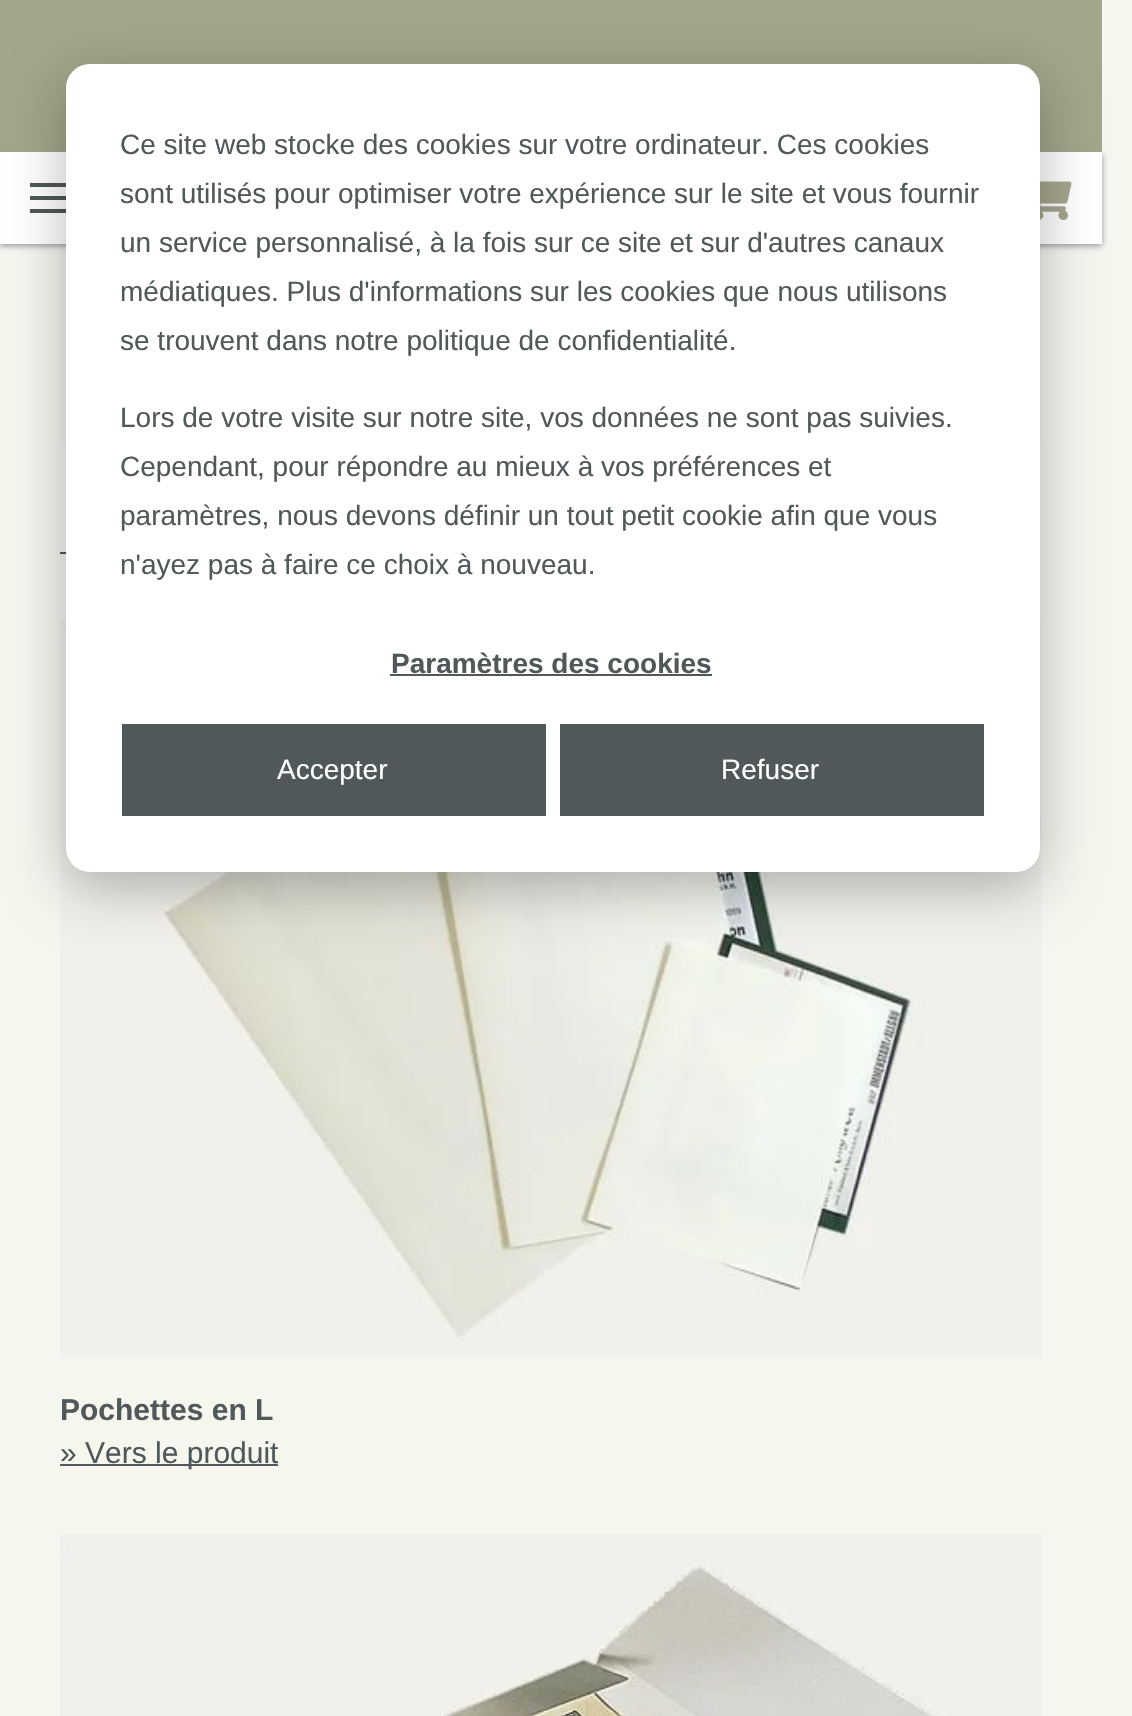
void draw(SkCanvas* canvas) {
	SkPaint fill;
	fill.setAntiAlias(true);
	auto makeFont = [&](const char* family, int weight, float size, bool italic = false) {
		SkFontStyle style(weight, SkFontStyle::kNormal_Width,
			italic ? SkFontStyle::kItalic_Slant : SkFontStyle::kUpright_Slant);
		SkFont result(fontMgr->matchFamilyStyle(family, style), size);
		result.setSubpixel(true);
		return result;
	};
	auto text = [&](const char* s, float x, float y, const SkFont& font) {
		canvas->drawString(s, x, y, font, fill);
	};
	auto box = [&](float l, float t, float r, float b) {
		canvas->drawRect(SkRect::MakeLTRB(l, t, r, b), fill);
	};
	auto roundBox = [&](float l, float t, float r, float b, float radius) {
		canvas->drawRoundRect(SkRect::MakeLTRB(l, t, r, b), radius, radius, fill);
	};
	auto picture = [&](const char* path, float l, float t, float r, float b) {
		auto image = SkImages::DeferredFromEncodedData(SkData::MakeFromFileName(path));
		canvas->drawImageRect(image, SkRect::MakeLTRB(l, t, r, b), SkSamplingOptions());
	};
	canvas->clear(0xFFF5F6EE);
	fill.setColor(0xFFFFFFFF);
	box(0, 152, 1102, 244);
	fill.setColor(0xFFA4A68B);
	box(0, 0, 1102, 152);
	picture("image1.png", 60, 244, 1042, 444);
	canvas->save();
	canvas->clipPath(SkPathBuilder(SkPathFillType::kEvenOdd).moveTo(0, 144).lineTo(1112, 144).lineTo(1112, 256).lineTo(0, 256).close().moveTo(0, 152).lineTo(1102, 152).lineTo(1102, 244).lineTo(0, 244).close().detach(), true);
	fill.setColor(0xFF999999);
	fill.setMaskFilter(SkMaskFilter::MakeBlur(kNormal_SkBlurStyle, 3));
	canvas->drawRect(SkRect::MakeLTRB(0, 154, 1102, 246), fill);
	fill.setMaskFilter(nullptr);
	canvas->restore();
	fill.setColor(0xFF515859);
	box(30, 183, 74, 187);
	box(30, 196, 74, 200);
	box(30, 209, 74, 213);
	picture("image0.png", 1040, 181, 1072, 220);
	box(60, 552, 66, 554);
	picture("image2.png", 60, 620, 1042, 1358);
	fill.setColor(0x47000000);
	fill.setMaskFilter(SkMaskFilter::MakeBlur(kNormal_SkBlurStyle, 28));
	canvas->drawRoundRect(SkRect::MakeLTRB(66, 80, 1040, 888), 24, 24, fill);
	fill.setMaskFilter(nullptr);
	fill.setColor(0xFFFFFFFF);
	roundBox(66, 64, 1040, 872, 24);
	fill.setColor(0xFF515859);
	box(390, 674, 712, 676);
	box(122, 724, 546, 816);
	box(560, 724, 984, 816);
	box(60, 1464, 278, 1466);
	picture("image3.png", 60, 1534, 1042, 1716);
	auto font1 = makeFont("Liberation Sans", 400, 28);
	text("Ce site web stocke des cookies sur votre ordinateur. Ces cookies", 120, 154, font1);
	text("sont utilisés pour optimiser votre expérience sur le site et vous fournir", 120, 203, font1);
	text("un service personnalisé, à la fois sur ce site et sur d'autres canaux", 120, 252, font1);
	text("médiatiques. Plus d'informations sur les cookies que nous utilisons", 120, 301, font1);
	text("se trouvent dans notre politique de confidentialité.", 120, 350, font1);
	text("Lors de votre visite sur notre site, vos données ne sont pas suivies.", 120, 427, font1);
	text("Cependant, pour répondre au mieux à vos préférences et", 120, 476, font1);
	text("paramètres, nous devons définir un tout petit cookie afin que vous", 120, 525, font1);
	text("n'ayez pas à faire ce choix à nouveau.", 120, 574, font1);
	auto font2 = makeFont("Liberation Sans", 700, 28);
	text("Paramètres des cookies", 391, 673, font2);
	fill.setColor(0xFFFFFFFF);
	text("Accepter", 277, 779, font1);
	text("Refuser", 721, 779, font1);
	auto font3 = makeFont("Liberation Sans", 700, 30);
	fill.setColor(0xFF515859);
	text("Pochettes en L", 60, 1420, font3);
	auto font4 = makeFont("Liberation Sans", 400, 30);
	text("» Vers le produit", 60, 1463, font4);
}
